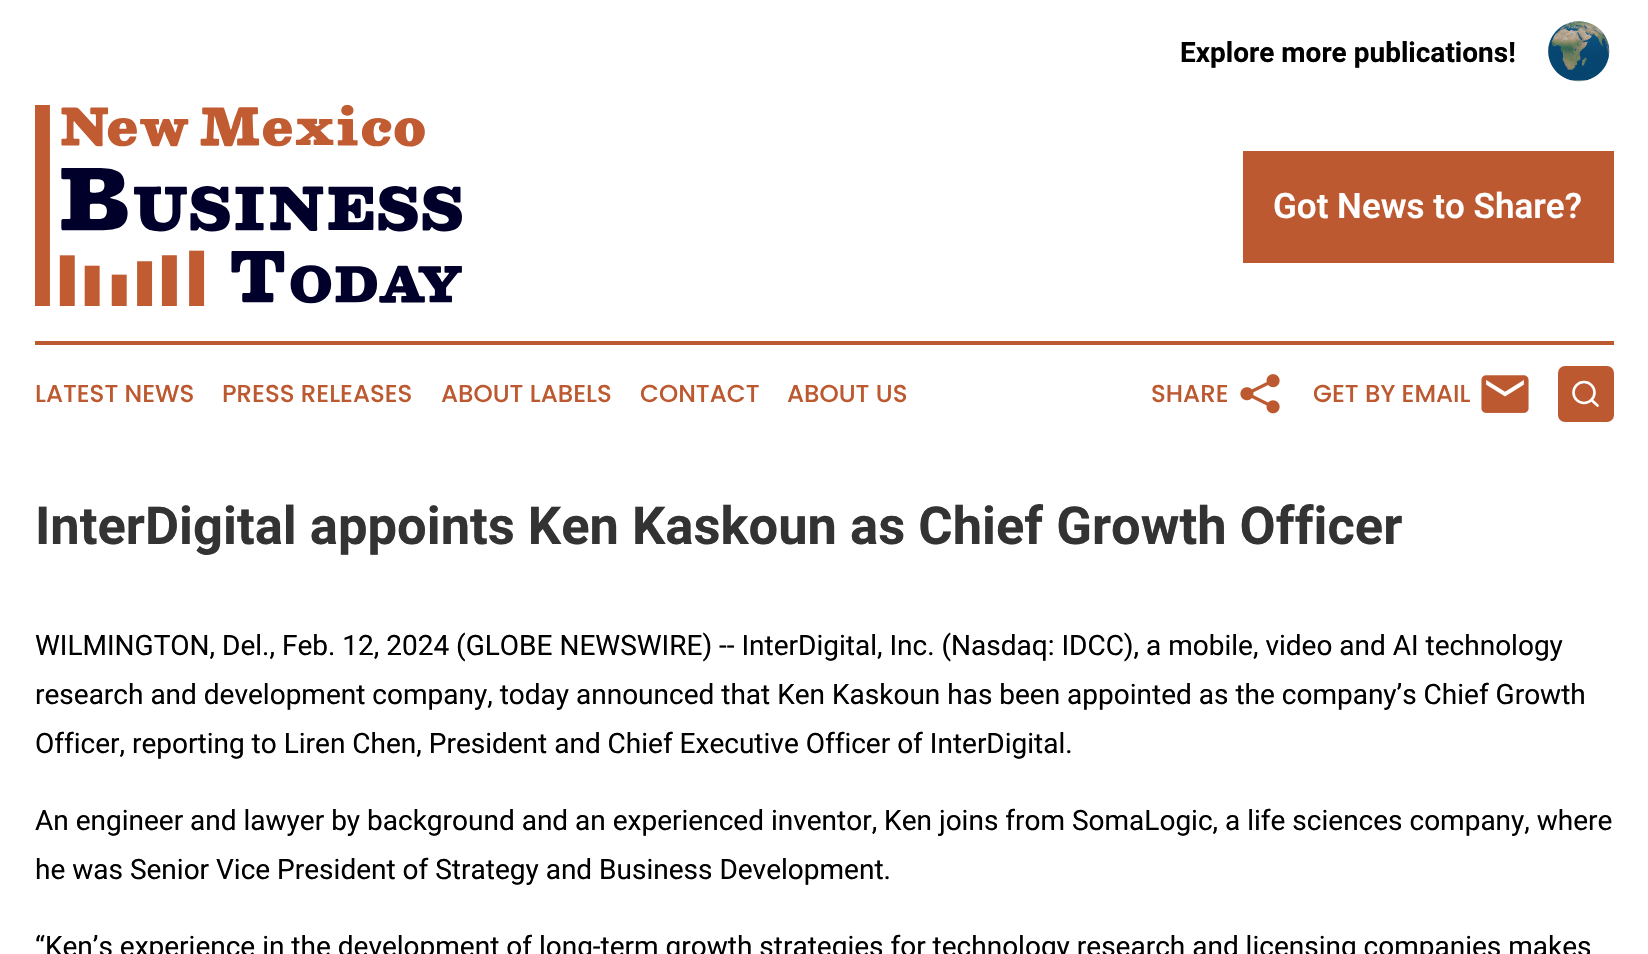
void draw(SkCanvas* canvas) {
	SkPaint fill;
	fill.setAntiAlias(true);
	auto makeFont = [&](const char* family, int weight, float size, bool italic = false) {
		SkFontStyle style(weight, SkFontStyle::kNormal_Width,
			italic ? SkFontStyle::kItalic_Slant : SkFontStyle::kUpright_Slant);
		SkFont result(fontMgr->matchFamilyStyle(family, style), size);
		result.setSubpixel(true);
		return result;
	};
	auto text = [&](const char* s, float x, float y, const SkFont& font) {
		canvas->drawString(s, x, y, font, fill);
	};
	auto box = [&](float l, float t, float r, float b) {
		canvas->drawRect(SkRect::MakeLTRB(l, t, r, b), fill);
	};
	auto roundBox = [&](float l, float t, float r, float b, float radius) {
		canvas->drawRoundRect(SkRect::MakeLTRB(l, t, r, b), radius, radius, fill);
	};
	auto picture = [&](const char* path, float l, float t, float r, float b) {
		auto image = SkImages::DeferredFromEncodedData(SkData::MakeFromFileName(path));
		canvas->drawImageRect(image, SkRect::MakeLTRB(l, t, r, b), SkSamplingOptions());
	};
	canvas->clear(0xFFFFFFFF);
	picture("image0.png", 1548, 21, 1610, 82);
	picture("image1.png", 35, 105, 462, 306);
	fill.setColor(0xFFBD5930);
	box(1243, 151, 1614, 263);
	box(35, 341, 1614, 345);
	picture("image2.png", 1240, 374, 1280, 414);
	picture("image3.png", 1481, 375, 1529, 413);
	roundBox(1558, 366, 1614, 422, 7);
	fill.setStyle(SkPaint::kStroke_Style);
	fill.setStrokeWidth(2.6f);
	fill.setColor(0xFFFFFFFF);
	canvas->drawCircle(1584, 392.5f, 10.5f, fill);
	fill.setStrokeCap(SkPaint::kRound_Cap);
	fill.setStrokeJoin(SkPaint::kRound_Join);
	canvas->drawPath(SkPathBuilder().moveTo(1597.5f, 405.5f).lineTo(1591.5f, 400).detach(), fill);
	auto font1 = makeFont("Roboto", 700, 28);
	fill.setStyle(SkPaint::kFill_Style);
	fill.setColor(0xFF000000);
	text("Explore more publications!", 1180, 62, font1);
	auto font2 = makeFont("Roboto", 600, 35);
	fill.setColor(0xFFFFFFFF);
	text("Got News to Share?", 1273, 218, font2);
	auto font3 = makeFont("Poppins", 500, 24.5f);
	fill.setColor(0xFFBD5930);
	text("LATEST NEWS", 35, 402, font3);
	text("PRESS RELEASES", 222, 402, font3);
	text("ABOUT LABELS", 441, 402, font3);
	text("CONTACT", 640, 402, font3);
	text("ABOUT US", 787, 402, font3);
	text("SHARE", 1151, 402, font3);
	text("GET BY EMAIL", 1313, 402, font3);
	auto font4 = makeFont("Roboto", 700, 52.5f);
	fill.setColor(0xFF333333);
	text("InterDigital appoints Ken Kaskoun as Chief Growth Officer", 35, 544, font4);
	auto font5 = makeFont("Roboto", 400, 28);
	fill.setColor(0xFF000000);
	text("WILMINGTON, Del., Feb. 12, 2024 (GLOBE NEWSWIRE) -- InterDigital, Inc. (Nasdaq: IDCC), a mobile, video and AI technology", 35, 655, font5);
	text("research and development company, today announced that Ken Kaskoun has been appointed as the company’s Chief Growth", 35, 704, font5);
	text("Officer, reporting to Liren Chen, President and Chief Executive Officer of InterDigital.", 35, 753, font5);
	text("An engineer and lawyer by background and an experienced inventor, Ken joins from SomaLogic, a life sciences company, where", 35, 830, font5);
	text("he was Senior Vice President of Strategy and Business Development.", 35, 879, font5);
	text("“Ken’s experience in the development of long-term growth strategies for technology research and licensing companies makes", 35, 956, font5);
}
